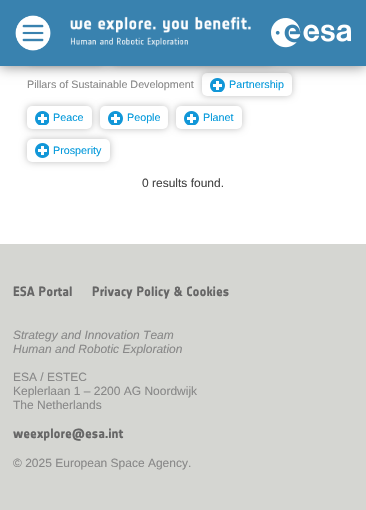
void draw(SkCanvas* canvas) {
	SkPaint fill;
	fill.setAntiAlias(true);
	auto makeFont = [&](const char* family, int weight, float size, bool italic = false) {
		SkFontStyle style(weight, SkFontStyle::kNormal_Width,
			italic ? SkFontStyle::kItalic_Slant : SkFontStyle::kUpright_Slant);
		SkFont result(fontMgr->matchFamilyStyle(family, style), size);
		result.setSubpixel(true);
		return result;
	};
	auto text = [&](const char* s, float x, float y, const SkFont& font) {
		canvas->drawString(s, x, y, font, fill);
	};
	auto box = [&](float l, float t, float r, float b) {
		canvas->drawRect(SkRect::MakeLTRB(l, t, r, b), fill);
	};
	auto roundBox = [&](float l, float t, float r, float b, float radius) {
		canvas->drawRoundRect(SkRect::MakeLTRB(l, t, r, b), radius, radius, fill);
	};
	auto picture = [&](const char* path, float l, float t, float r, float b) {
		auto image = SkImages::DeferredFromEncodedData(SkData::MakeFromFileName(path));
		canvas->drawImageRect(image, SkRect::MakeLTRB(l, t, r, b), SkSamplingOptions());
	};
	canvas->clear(0xFFFFFFFF);
	fill.setColor(0x40000000);
	fill.setMaskFilter(SkMaskFilter::MakeBlur(kNormal_SkBlurStyle, 3.5f));
	canvas->drawRoundRect(SkRect::MakeLTRB(112, 40, 273, 64), 5, 5, fill);
	fill.setMaskFilter(nullptr);
	fill.setMaskFilter(SkMaskFilter::MakeBlur(kNormal_SkBlurStyle, 3.5f));
	canvas->drawRoundRect(SkRect::MakeLTRB(202, 73, 292, 96), 5, 5, fill);
	fill.setMaskFilter(nullptr);
	fill.setColor(0xFFFFFFFF);
	roundBox(202, 73, 292, 96, 5);
	picture("image3.png", 210, 78, 225, 92);
	fill.setColor(0x80000000);
	fill.setMaskFilter(SkMaskFilter::MakeBlur(kNormal_SkBlurStyle, 6.5f));
	canvas->drawRect(SkRect::MakeLTRB(0, 0, 366, 66), fill);
	fill.setMaskFilter(nullptr);
	fill.setColor(0x40000000);
	fill.setMaskFilter(SkMaskFilter::MakeBlur(kNormal_SkBlurStyle, 3.5f));
	canvas->drawRoundRect(SkRect::MakeLTRB(27, 40, 104, 64), 5, 5, fill);
	fill.setMaskFilter(nullptr);
	fill.setColor(0xFF3982AF);
	box(0, 0, 366, 66);
	picture("image0.png", 15, 15, 51, 51);
	picture("image1.png", 70, 16, 251, 47);
	picture("image2.png", 271, 18, 351, 48);
	fill.setColor(0x40000000);
	fill.setMaskFilter(SkMaskFilter::MakeBlur(kNormal_SkBlurStyle, 3.5f));
	canvas->drawRoundRect(SkRect::MakeLTRB(27, 106, 92, 129), 5, 5, fill);
	fill.setMaskFilter(nullptr);
	fill.setColor(0xFFFFFFFF);
	roundBox(27, 106, 92, 129, 5);
	picture("image4.png", 35, 111, 49, 125);
	fill.setColor(0x40000000);
	fill.setMaskFilter(SkMaskFilter::MakeBlur(kNormal_SkBlurStyle, 3.5f));
	canvas->drawRoundRect(SkRect::MakeLTRB(100, 106, 168, 129), 5, 5, fill);
	fill.setMaskFilter(nullptr);
	fill.setColor(0xFFFFFFFF);
	roundBox(100, 106, 168, 129, 5);
	picture("image3.png", 108, 111, 123, 125);
	fill.setColor(0x40000000);
	fill.setMaskFilter(SkMaskFilter::MakeBlur(kNormal_SkBlurStyle, 3.5f));
	canvas->drawRoundRect(SkRect::MakeLTRB(176, 106, 242, 129), 5, 5, fill);
	fill.setMaskFilter(nullptr);
	fill.setColor(0xFFFFFFFF);
	roundBox(176, 106, 242, 129, 5);
	picture("image3.png", 184, 111, 199, 125);
	fill.setColor(0x40000000);
	fill.setMaskFilter(SkMaskFilter::MakeBlur(kNormal_SkBlurStyle, 3.5f));
	canvas->drawRoundRect(SkRect::MakeLTRB(27, 139, 110, 162), 5, 5, fill);
	fill.setMaskFilter(nullptr);
	fill.setColor(0xFFFFFFFF);
	roundBox(27, 139, 110, 162, 5);
	picture("image5.png", 35, 143, 49, 158);
	fill.setColor(0xFFD5D6D2);
	box(0, 244, 366, 510);
	auto font1 = makeFont("Liberation Sans", 400, 10.75f);
	fill.setColor(0xFF888888);
	text("Pillars of Sustainable Development", 27, 88, font1);
	fill.setColor(0xFF0098DB);
	text("Partnership", 229, 88, font1);
	text("Peace", 53, 121, font1);
	text("People", 127, 121, font1);
	text("Planet", 203, 121, font1);
	text("Prosperity", 53, 154, font1);
	auto font2 = makeFont("Liberation Sans", 400, 12);
	fill.setColor(0xFF444444);
	text("0 results found.", 142, 187, font2);
	auto font3 = makeFont("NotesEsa", 700, 13.25f);
	fill.setColor(0xFF666666);
	text("ESA Portal", 13, 296, font3);
	text("Privacy Policy & Cookies", 92, 296, font3);
	auto font4 = makeFont("Liberation Sans", 400, 12, true);
	fill.setColor(0xFF888888);
	text("Strategy and Innovation Team", 13, 339, font4);
	text("Human and Robotic Exploration", 13, 353, font4);
	text("ESA / ESTEC", 13, 381, font2);
	text("Keplerlaan 1 – 2200 AG Noordwijk", 13, 395, font2);
	text("The Netherlands", 13, 409, font2);
	fill.setColor(0xFF666666);
	text("weexplore@esa.int", 13, 438, font3);
	fill.setColor(0xFF888888);
	text("© 2025 European Space Agency.", 13, 467, font2);
}
